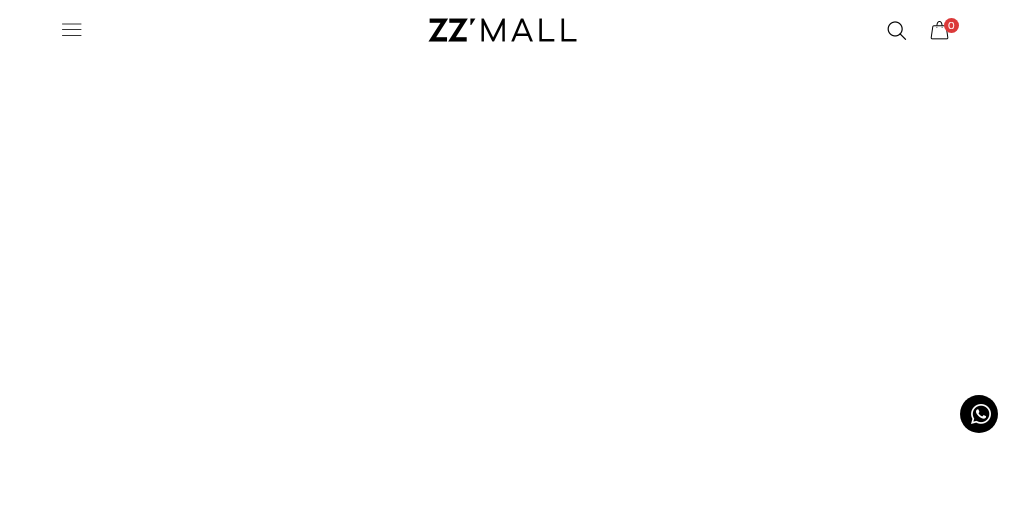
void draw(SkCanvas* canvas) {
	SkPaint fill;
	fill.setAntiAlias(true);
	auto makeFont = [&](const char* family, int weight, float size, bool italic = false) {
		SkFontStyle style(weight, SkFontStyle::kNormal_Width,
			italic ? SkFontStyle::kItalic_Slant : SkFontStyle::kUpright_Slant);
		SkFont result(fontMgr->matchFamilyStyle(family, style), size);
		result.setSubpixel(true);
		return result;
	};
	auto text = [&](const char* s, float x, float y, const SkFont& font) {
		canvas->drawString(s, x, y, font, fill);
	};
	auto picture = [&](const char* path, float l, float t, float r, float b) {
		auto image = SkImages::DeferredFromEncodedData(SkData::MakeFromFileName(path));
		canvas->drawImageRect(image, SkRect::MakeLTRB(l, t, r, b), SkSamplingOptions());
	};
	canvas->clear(0xFFFFFFFF);
	fill.setStyle(SkPaint::kStroke_Style);
	fill.setStrokeWidth(0.8f);
	fill.setStrokeCap(SkPaint::kRound_Cap);
	fill.setStrokeJoin(SkPaint::kRound_Join);
	fill.setColor(0xFF000000);
	canvas->drawPath(SkPathBuilder().moveTo(62.5f, 35.5f).lineTo(81, 35.5f).moveTo(62.5f, 29.5f).lineTo(81, 29.5f).moveTo(62.5f, 24).lineTo(81, 24).detach(), fill);
	picture("image0.png", 428, 18, 577, 42);
	picture("image1.png", 887, 21, 907, 40);
	picture("image2.png", 930, 21, 949, 40);
	fill.setStyle(SkPaint::kFill_Style);
	fill.setColor(0xFFDB3939);
	canvas->drawCircle(951.5f, 25.5f, 7.5f, fill);
	fill.setColor(0xFF000000);
	canvas->drawCircle(979, 414, 19, fill);
	picture("image3.png", 971, 404, 991, 424);
	auto font1 = makeFont("Montserrat", 400, 10);
	fill.setColor(0xFFFFFFFF);
	text("0", 948, 29, font1);
}
